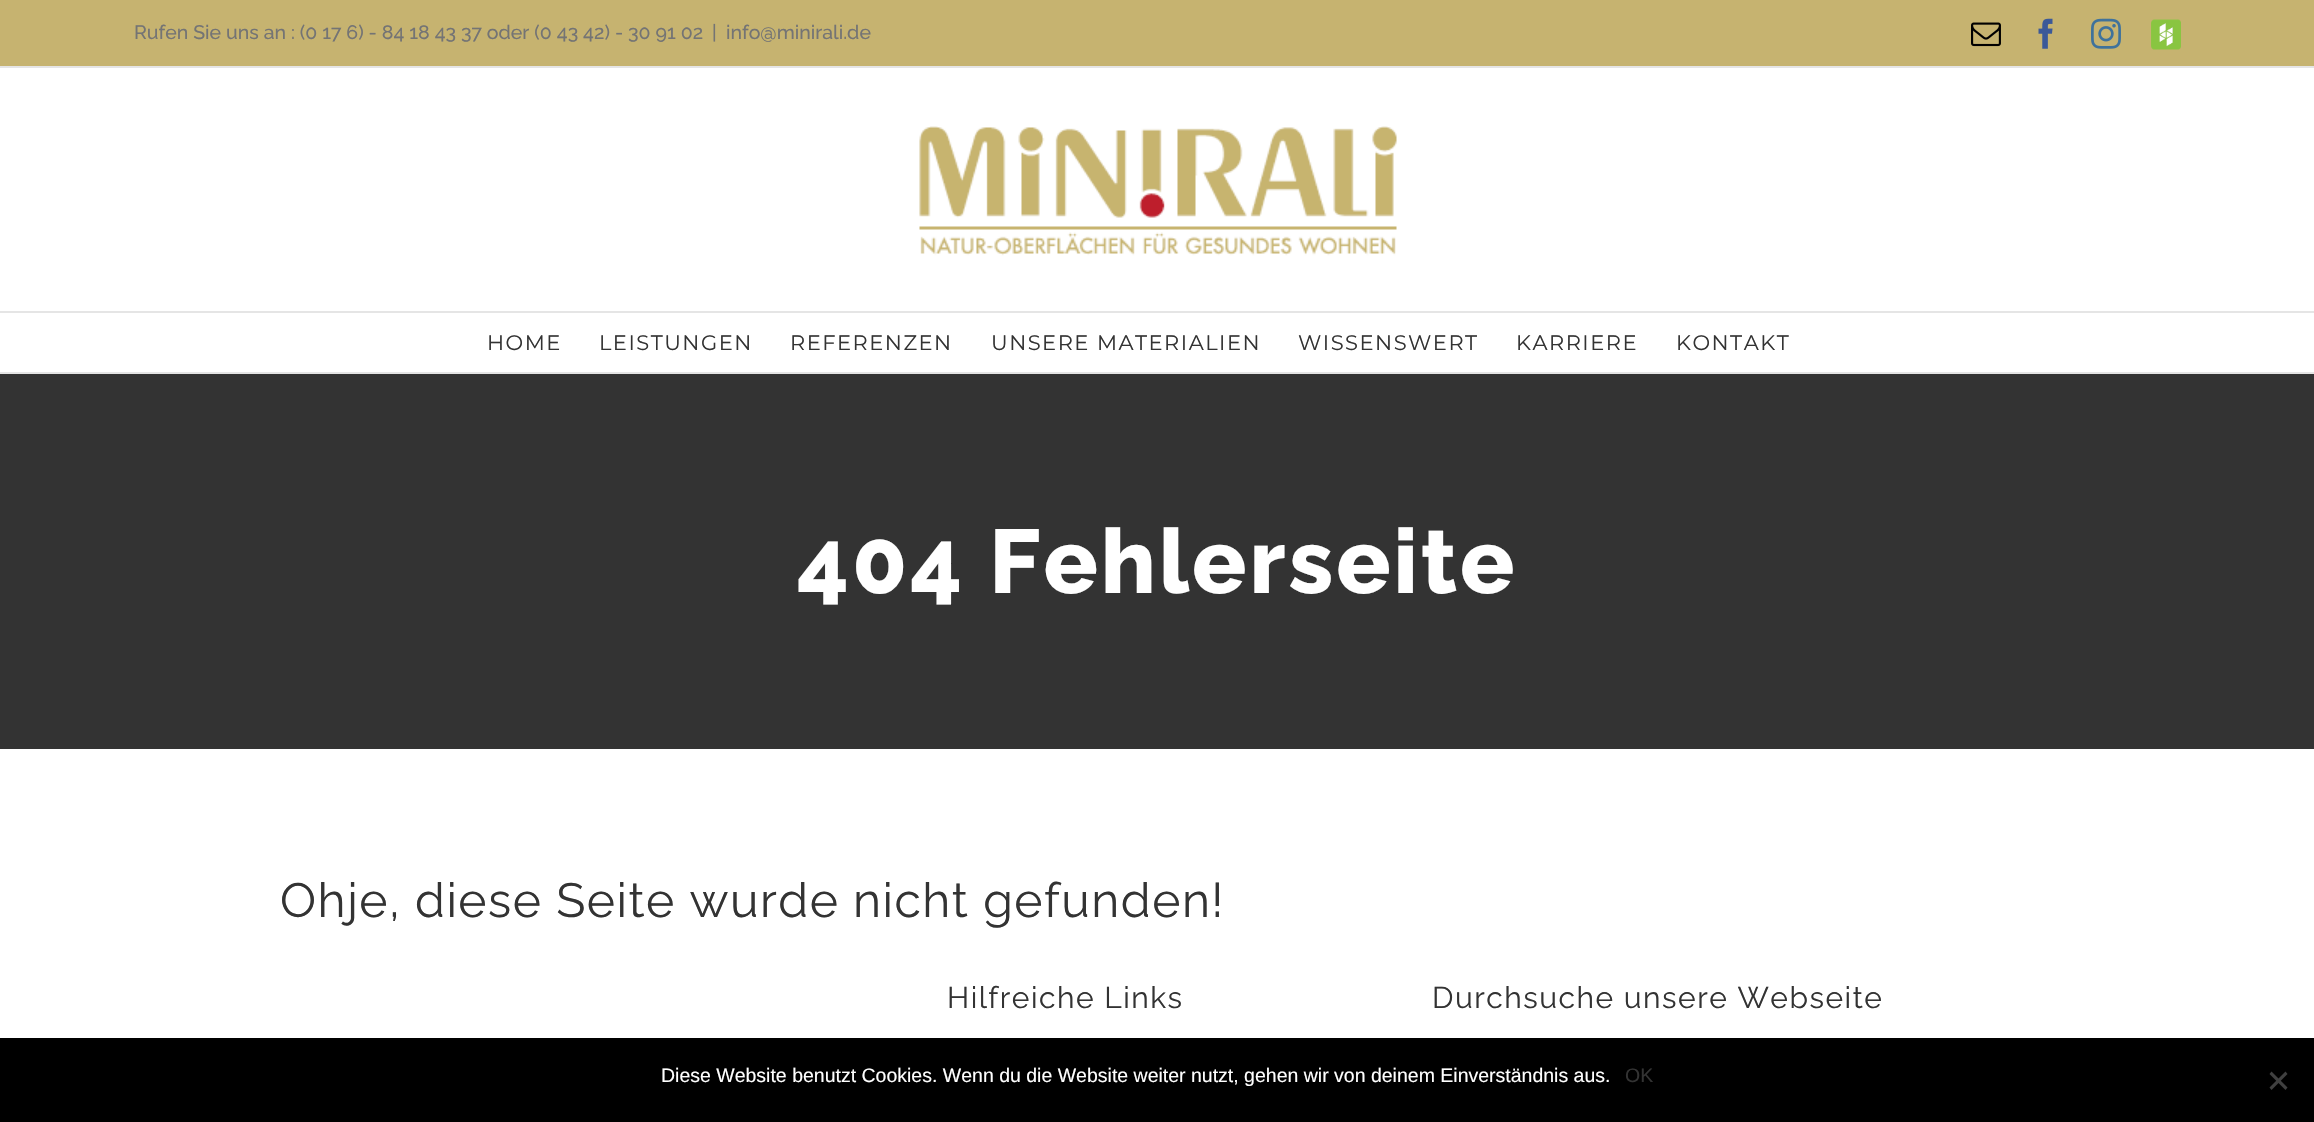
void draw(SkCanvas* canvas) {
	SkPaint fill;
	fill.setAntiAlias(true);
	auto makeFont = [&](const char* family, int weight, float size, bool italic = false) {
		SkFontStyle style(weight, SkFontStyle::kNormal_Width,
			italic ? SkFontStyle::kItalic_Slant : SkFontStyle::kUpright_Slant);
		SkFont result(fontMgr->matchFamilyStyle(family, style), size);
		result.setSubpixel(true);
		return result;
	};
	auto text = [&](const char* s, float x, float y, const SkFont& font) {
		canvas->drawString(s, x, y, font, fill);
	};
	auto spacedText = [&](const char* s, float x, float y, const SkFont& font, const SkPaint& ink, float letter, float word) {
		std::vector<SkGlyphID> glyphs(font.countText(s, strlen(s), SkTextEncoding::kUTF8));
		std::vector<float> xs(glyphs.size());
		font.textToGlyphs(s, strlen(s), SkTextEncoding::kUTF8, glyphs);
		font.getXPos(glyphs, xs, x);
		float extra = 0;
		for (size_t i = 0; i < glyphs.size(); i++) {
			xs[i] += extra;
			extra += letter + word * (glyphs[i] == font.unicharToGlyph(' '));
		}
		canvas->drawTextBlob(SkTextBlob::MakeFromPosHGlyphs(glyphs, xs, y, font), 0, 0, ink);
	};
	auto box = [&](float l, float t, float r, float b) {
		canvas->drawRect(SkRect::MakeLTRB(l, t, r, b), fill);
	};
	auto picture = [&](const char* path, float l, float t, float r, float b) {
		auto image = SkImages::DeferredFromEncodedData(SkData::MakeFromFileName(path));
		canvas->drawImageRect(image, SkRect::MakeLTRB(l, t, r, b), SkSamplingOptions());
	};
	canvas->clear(0xFFFFFFFF);
	fill.setColor(0xFFC6B370);
	box(0, 0, 2314, 66);
	fill.setColor(0xFFE5E5E5);
	box(0, 66, 2314, 68);
	picture("image0.png", 1971, 22, 2001, 47);
	picture("image1.png", 2038, 18, 2053, 49);
	picture("image2.png", 2091, 18, 2121, 49);
	picture("image3.png", 2151, 19, 2181, 50);
	box(0, 311, 2314, 313);
	picture("image4.png", 919, 126, 1397, 256);
	box(0, 372, 2314, 374);
	fill.setColor(0xFF333333);
	box(0, 374, 2314, 749);
	fill.setColor(0xFF000000);
	box(0, 1038, 2314, 1122);
	fill.setColor(0xFF404040);
	canvas->drawPath(SkPathBuilder().moveTo(2285.5f, 1071.5f).lineTo(2287.5f, 1074).lineTo(2271.5f, 1090).lineTo(2269.5f, 1087.5f).close().detach(), fill);
	canvas->drawPath(SkPathBuilder().moveTo(2269.5f, 1074).lineTo(2271.5f, 1071.5f).lineTo(2287.5f, 1087.5f).lineTo(2285.5f, 1090).close().detach(), fill);
	auto font1 = makeFont("Raleway", 500, 19.5f);
	fill.setColor(0xFF747474);
	text("Rufen Sie uns an : (0 17 6) - 84 18 43 37 oder (0 43 42) - 30 91 02", 134, 39, font1);
	text("|", 712, 39, font1);
	text("info@minirali.de", 726, 39, font1);
	auto font2 = makeFont("Montserrat", 400, 21);
	fill.setColor(0xFF333333);
	spacedText("HOME", 487, 350, font2, fill, 1.5f, 0);
	spacedText("LEISTUNGEN", 599, 350, font2, fill, 1.5f, 0);
	spacedText("REFERENZEN", 790, 350, font2, fill, 1.5f, 0);
	spacedText("UNSERE MATERIALIEN", 991, 350, font2, fill, 1.5f, 0);
	spacedText("WISSENSWERT", 1298, 350, font2, fill, 1.5f, 0);
	spacedText("KARRIERE", 1516, 350, font2, fill, 1.5f, 0);
	spacedText("KONTAKT", 1676, 350, font2, fill, 1.5f, 0);
	auto font3 = makeFont("Raleway", 800, 90);
	fill.setColor(0xFFFFFFFF);
	spacedText("404 Fehlerseite", 797, 593, font3, fill, 3, 0);
	auto font4 = makeFont("Raleway", 400, 48);
	fill.setColor(0xFF333333);
	spacedText("Ohje, diese Seite wurde nicht gefunden!", 280, 917, font4, fill, 1.5f, 0);
	auto font5 = makeFont("Raleway", 400, 30);
	spacedText("Hilfreiche Links", 947, 1008, font5, fill, 1.5f, 0);
	spacedText("Durchsuche unsere Webseite", 1432, 1008, font5, fill, 1.5f, 0);
	auto font6 = makeFont("Liberation Sans", 400, 19.5f);
	fill.setColor(0xFFFFFFFF);
	text("Diese Website benutzt Cookies. Wenn du die Website weiter nutzt, gehen wir von deinem Einverständnis aus.", 661, 1082, font6);
	fill.setColor(0xFF333333);
	text("OK", 1625, 1082, font6);
}
